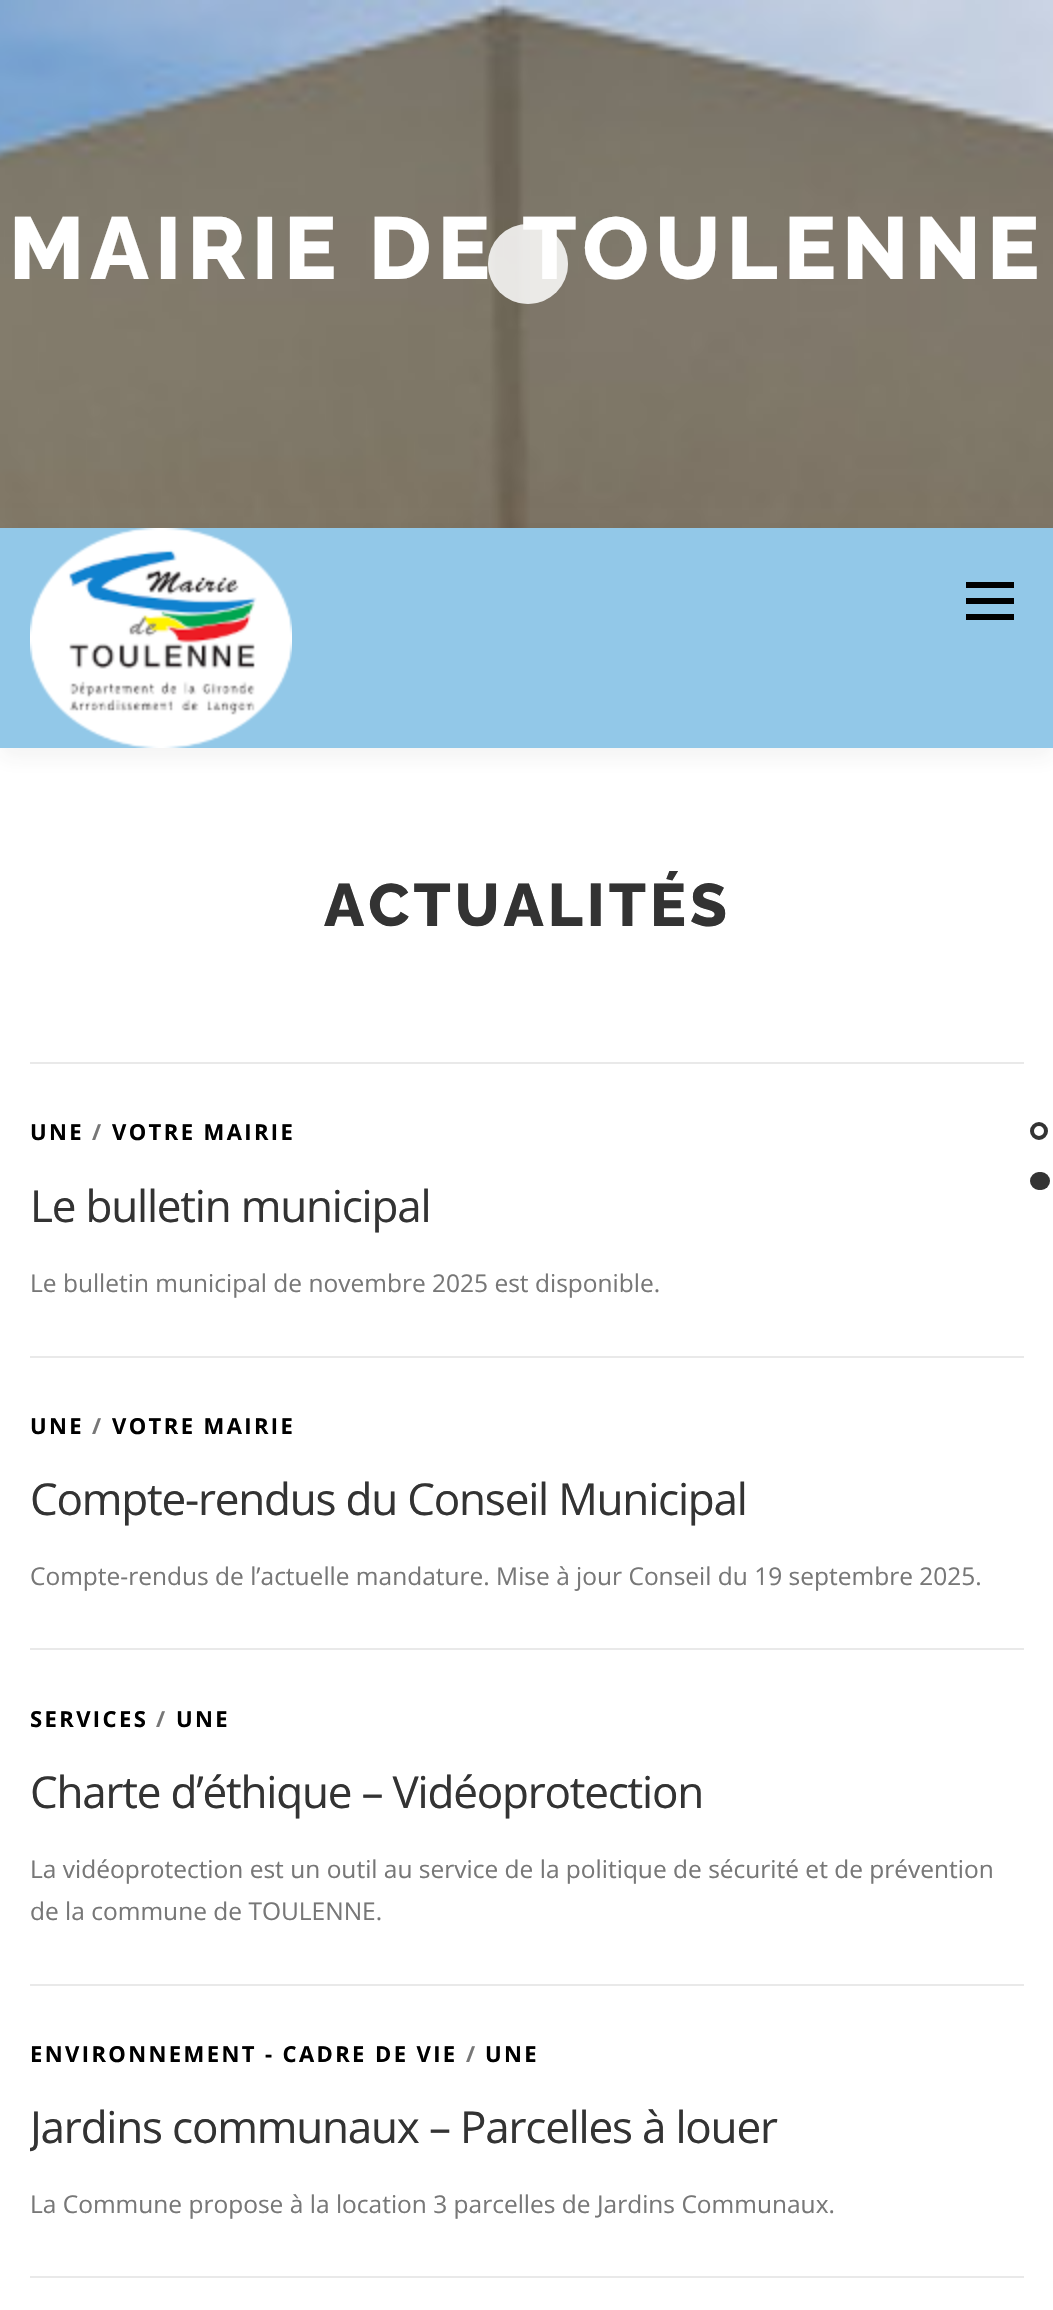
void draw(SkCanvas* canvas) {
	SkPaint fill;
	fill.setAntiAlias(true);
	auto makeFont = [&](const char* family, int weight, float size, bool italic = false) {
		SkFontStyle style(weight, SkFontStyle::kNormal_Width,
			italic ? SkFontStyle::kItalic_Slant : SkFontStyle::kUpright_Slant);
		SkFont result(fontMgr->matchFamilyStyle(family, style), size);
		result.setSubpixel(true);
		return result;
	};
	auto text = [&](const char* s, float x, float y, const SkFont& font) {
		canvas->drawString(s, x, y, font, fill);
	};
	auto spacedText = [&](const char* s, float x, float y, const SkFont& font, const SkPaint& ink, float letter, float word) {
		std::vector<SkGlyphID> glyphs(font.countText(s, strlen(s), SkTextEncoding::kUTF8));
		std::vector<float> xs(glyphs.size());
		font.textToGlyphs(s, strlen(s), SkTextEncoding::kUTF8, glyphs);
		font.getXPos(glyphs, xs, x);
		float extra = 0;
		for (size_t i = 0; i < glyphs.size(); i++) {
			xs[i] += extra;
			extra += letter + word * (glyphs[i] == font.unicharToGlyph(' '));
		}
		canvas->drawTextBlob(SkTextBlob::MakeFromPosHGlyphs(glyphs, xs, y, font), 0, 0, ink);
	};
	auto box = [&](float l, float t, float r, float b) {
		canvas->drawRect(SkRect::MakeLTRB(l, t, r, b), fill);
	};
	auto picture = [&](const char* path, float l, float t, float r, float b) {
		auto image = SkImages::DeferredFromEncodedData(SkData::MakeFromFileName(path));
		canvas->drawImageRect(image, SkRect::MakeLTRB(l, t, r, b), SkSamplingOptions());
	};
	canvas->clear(0xFFFFFFFF);
	picture("image0.png", 0, 0, 1053, 528);
	fill.setColor(0x0F323232);
	fill.setMaskFilter(SkMaskFilter::MakeBlur(kNormal_SkBlurStyle, 10));
	canvas->drawRect(SkRect::MakeLTRB(0, 538, 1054, 758), fill);
	fill.setMaskFilter(nullptr);
	fill.setColor(0xFF92C8E8);
	box(0, 528, 1053, 748);
	picture("image1.png", 30, 528, 292, 748);
	fill.setColor(0xFF000000);
	box(966, 598, 1014, 604);
	box(966, 582, 1014, 588);
	box(966, 614, 1014, 620);
	fill.setColor(0xFFE9E9E9);
	box(30, 1062, 1024, 1064);
	box(30, 1356, 1024, 1358);
	box(30, 1648, 1024, 1650);
	box(30, 1984, 1024, 1986);
	box(30, 2276, 1024, 2278);
	fill.setStyle(SkPaint::kStroke_Style);
	fill.setStrokeWidth(4);
	fill.setColor(0xFF333333);
	canvas->drawCircle(1039, 1131, 7, fill);
	fill.setStyle(SkPaint::kFill_Style);
	canvas->drawCircle(1041, 1181, 9, fill);
	fill.setStyle(SkPaint::kStroke_Style);
	canvas->drawCircle(1039, 1181, 7, fill);
	auto font1 = makeFont("Raleway", 800, 87.5f);
	fill.setStyle(SkPaint::kFill_Style);
	fill.setColor(0xFFFFFFFF);
	spacedText("MAIRIE DE TOULENNE", 9, 279, font1, fill, 6, 0);
	fill.setColor(0x99FFFFFF);
	canvas->drawCircle(528, 264, 40, fill);
	canvas->drawCircle(528, 264, 40, fill);
	auto font2 = makeFont("Raleway", 800, 60);
	fill.setColor(0xFF333333);
	spacedText("ACTUALITÉS", 324, 926, font2, fill, 4, 0);
	auto font3 = makeFont("Open Sans", 700, 22);
	fill.setColor(0xFF000000);
	spacedText("UNE", 30, 1140, font3, fill, 2.4f, 0);
	fill.setColor(0xFF777777);
	spacedText("/", 92, 1140, font3, fill, 2.4f, 0);
	fill.setColor(0xFF000000);
	spacedText("VOTRE MAIRIE", 112, 1140, font3, fill, 2.4f, 0);
	auto font4 = makeFont("Open Sans", 400, 44);
	fill.setColor(0xFF333333);
	spacedText("Le bulletin municipal", 30, 1222, font4, fill, -1.2f, 0);
	auto font5 = makeFont("Open Sans", 400, 24.5f);
	fill.setColor(0xFF777777);
	text("Le bulletin municipal de novembre 2025 est disponible.", 30, 1292, font5);
	fill.setColor(0xFF000000);
	spacedText("UNE", 30, 1434, font3, fill, 2.4f, 0);
	fill.setColor(0xFF777777);
	spacedText("/", 92, 1434, font3, fill, 2.4f, 0);
	fill.setColor(0xFF000000);
	spacedText("VOTRE MAIRIE", 112, 1434, font3, fill, 2.4f, 0);
	fill.setColor(0xFF333333);
	spacedText("Compte-rendus du Conseil Municipal", 30, 1515, font4, fill, -1.2f, 0);
	fill.setColor(0xFF777777);
	text("Compte-rendus de l’actuelle mandature. Mise à jour Conseil du 19 septembre 2025.", 30, 1585, font5);
	fill.setColor(0xFF000000);
	spacedText("SERVICES", 30, 1727, font3, fill, 2.4f, 0);
	fill.setColor(0xFF777777);
	spacedText("/", 156, 1727, font3, fill, 2.4f, 0);
	fill.setColor(0xFF000000);
	spacedText("UNE", 176, 1727, font3, fill, 2.4f, 0);
	fill.setColor(0xFF333333);
	spacedText("Charte d’éthique – Vidéoprotection", 30, 1808, font4, fill, -1.2f, 0);
	fill.setColor(0xFF777777);
	text("La vidéoprotection est un outil au service de la politique de sécurité et de prévention", 30, 1878, font5);
	text("de la commune de TOULENNE.", 30, 1920, font5);
	fill.setColor(0xFF000000);
	spacedText("ENVIRONNEMENT - CADRE DE VIE", 30, 2062, font3, fill, 2.4f, 0);
	fill.setColor(0xFF777777);
	spacedText("/", 466, 2062, font3, fill, 2.4f, 0);
	fill.setColor(0xFF000000);
	spacedText("UNE", 485, 2062, font3, fill, 2.4f, 0);
	canvas->save();
	canvas->clipRect(SkRect::MakeLTRB(30, 2036, 1024, 2226));
	fill.setColor(0xFF333333);
	spacedText("Jardins communaux – Parcelles à louer", 30, 2143, font4, fill, -1.2f, 0);
	canvas->restore();
	fill.setColor(0xFF777777);
	text("La Commune propose à la location 3 parcelles de Jardins Communaux.", 30, 2213, font5);
}
